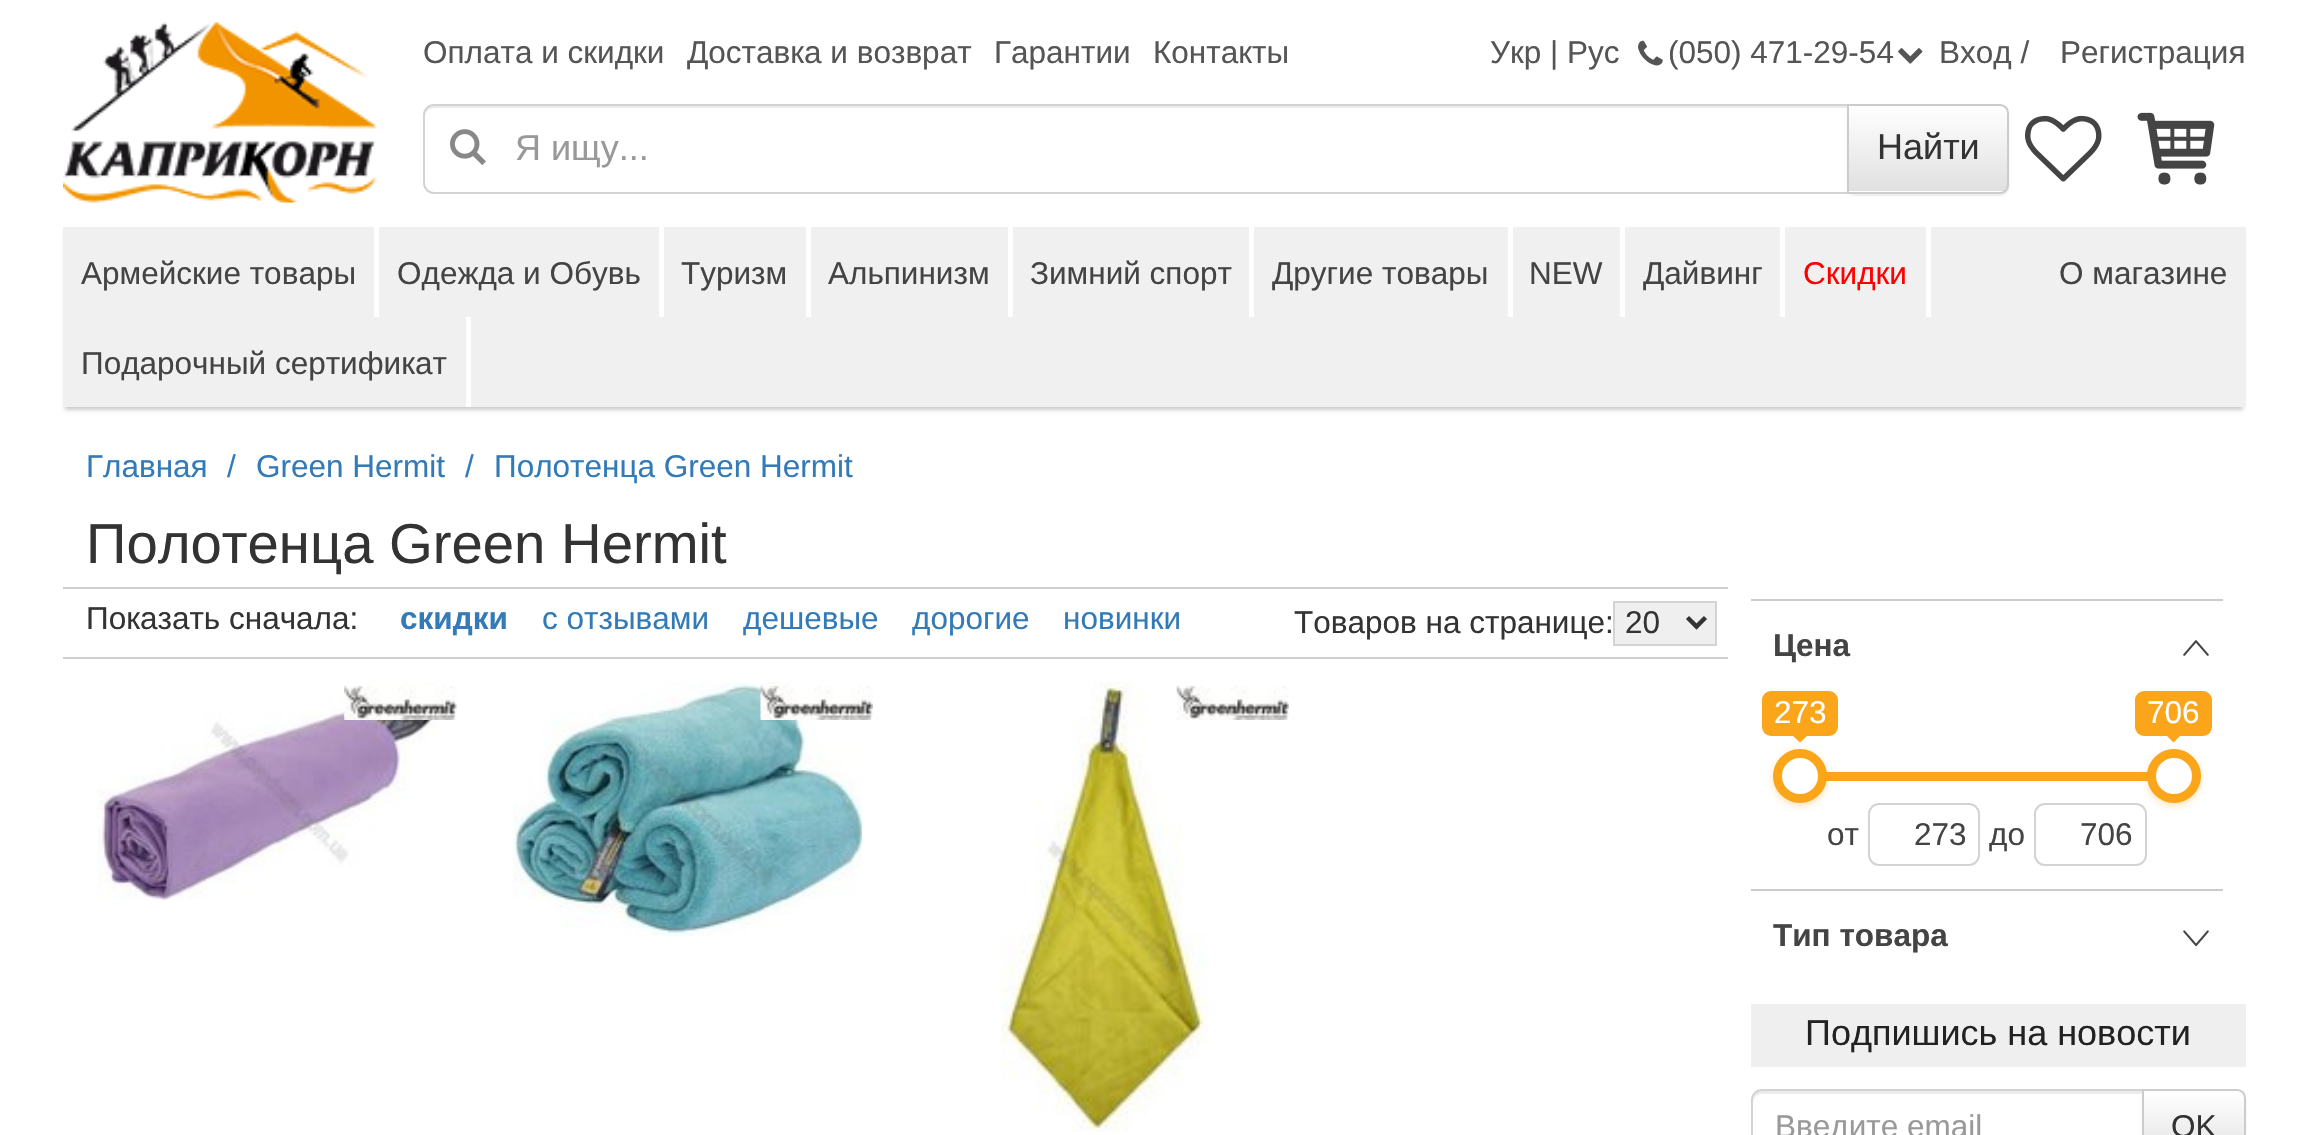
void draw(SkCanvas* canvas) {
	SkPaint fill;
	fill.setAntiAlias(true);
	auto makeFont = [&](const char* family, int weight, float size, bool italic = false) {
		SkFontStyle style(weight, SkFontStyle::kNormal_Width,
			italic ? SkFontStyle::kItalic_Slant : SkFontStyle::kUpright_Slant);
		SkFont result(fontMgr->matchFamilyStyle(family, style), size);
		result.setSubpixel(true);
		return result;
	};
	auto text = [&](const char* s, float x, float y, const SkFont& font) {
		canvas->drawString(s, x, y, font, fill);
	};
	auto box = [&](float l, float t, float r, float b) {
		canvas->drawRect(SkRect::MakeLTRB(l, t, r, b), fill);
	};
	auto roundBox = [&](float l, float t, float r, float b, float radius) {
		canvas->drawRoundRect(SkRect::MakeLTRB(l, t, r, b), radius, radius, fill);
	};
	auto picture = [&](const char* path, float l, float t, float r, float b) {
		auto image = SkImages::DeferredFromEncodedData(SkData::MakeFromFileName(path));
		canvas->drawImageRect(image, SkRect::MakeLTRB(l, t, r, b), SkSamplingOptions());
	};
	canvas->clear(0xFFFFFFFF);
	picture("image0.png", 63, 22, 377, 203);
	picture("image1.png", 1638, 40, 1663, 66);
	picture("image2.png", 1898, 48, 1923, 64);
	fill.setColor(0xFFECECEC);
	canvas->drawPath(SkPathBuilder().moveTo(434, 108).lineTo(1847, 108).lineTo(1847, 106).lineTo(434, 106).cubicTo(429, 106, 425, 110, 425, 115).lineTo(425, 117).cubicTo(425, 112, 429, 108, 434, 108).close().detach(), fill);
	fill.setStyle(SkPaint::kStroke_Style);
	fill.setStrokeWidth(2);
	fill.setColor(0xFFD3D3D3);
	canvas->drawPath(SkPathBuilder().moveTo(434, 105).lineTo(1849, 105).lineTo(1849, 193).lineTo(434, 193).cubicTo(428.5f, 193, 424, 188.5f, 424, 183).lineTo(424, 115).cubicTo(424, 109.5f, 428.5f, 105, 434, 105).close().detach(), fill);
	picture("image3.png", 450, 129, 486, 166);
	fill.setStyle(SkPaint::kFill_Style);
	fill.setColor(0x12000000);
	fill.setMaskFilter(SkMaskFilter::MakeBlur(kNormal_SkBlurStyle, 1));
	canvas->drawRoundRect(SkRect::MakeLTRB(1847, 106, 2009, 196), 9, 9, fill);
	fill.setMaskFilter(nullptr);
	fill.setColor(0xFFFFFFFF);
	canvas->drawPath(SkPathBuilder().moveTo(1847, 104).lineTo(2000, 104).cubicTo(2005, 104, 2009, 108, 2009, 113).lineTo(2009, 185).cubicTo(2009, 190, 2005, 194, 2000, 194).lineTo(1847, 194).close().detach(), fill);
	canvas->save();
	canvas->clipPath(SkPathBuilder().moveTo(1847, 104).lineTo(2000, 104).cubicTo(2005, 104, 2009, 108, 2009, 113).lineTo(2009, 185).cubicTo(2009, 190, 2005, 194, 2000, 194).lineTo(1847, 194).close().detach(), true);
	{
		const SkColor colors[] = {0xFFFFFFFF, 0xFFE0E0E0};
		const float stops[] = {0, 1};
		const SkPoint ends[] = {{1928, 106}, {1928, 191}};
		fill.setShader(SkGradientShader::MakeLinear(ends, colors, stops, 2, SkTileMode::kClamp));
		fill.setAlpha(255);
	}
	box(1849, 106, 2009, 191);
	canvas->restore();
	fill.setStyle(SkPaint::kStroke_Style);
	fill.setShader(nullptr);
	fill.setColor(0xFFCCCCCC);
	canvas->drawPath(SkPathBuilder().moveTo(1848, 105).lineTo(2000, 105).cubicTo(2004.5f, 105, 2008, 108.5f, 2008, 113).lineTo(2008, 185).cubicTo(2008, 189.5f, 2004.5f, 193, 2000, 193).lineTo(1848, 193).close().detach(), fill);
	picture("image4.png", 2025, 115, 2102, 182);
	picture("image5.png", 2137, 112, 2215, 185);
	fill.setStyle(SkPaint::kFill_Style);
	fill.setColor(0xFFF0F0F0);
	box(63, 227, 2246, 407);
	canvas->save();
	canvas->clipPath(SkPathBuilder(SkPathFillType::kEvenOdd).moveTo(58, 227).lineTo(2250, 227).lineTo(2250, 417).lineTo(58, 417).close().moveTo(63, 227).lineTo(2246, 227).lineTo(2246, 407).lineTo(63, 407).close().detach(), true);
	fill.setColor(0xFFCCCCCC);
	fill.setMaskFilter(SkMaskFilter::MakeBlur(kNormal_SkBlurStyle, 2));
	canvas->drawRect(SkRect::MakeLTRB(65, 234, 2243, 410), fill);
	fill.setMaskFilter(nullptr);
	canvas->restore();
	fill.setColor(0xFFFFFFFF);
	box(374, 227, 379, 317);
	box(659, 227, 664, 317);
	box(806, 227, 811, 317);
	box(1008, 227, 1013, 317);
	box(1249, 227, 1254, 317);
	box(1508, 227, 1513, 317);
	box(1620, 227, 1625, 317);
	box(1780, 227, 1785, 317);
	box(1926, 227, 1931, 317);
	box(466, 317, 471, 407);
	fill.setColor(0xFFCFCFCF);
	box(63, 587, 1728, 589);
	box(63, 657, 1728, 659);
	fill.setColor(0xFFEFEFEF);
	canvas->drawRect(SkRect::MakeLTRB(1614, 602, 1716, 645), fill);
	fill.setStyle(SkPaint::kStroke_Style);
	fill.setColor(0xFFD3D3D3);
	canvas->drawRect(SkRect::MakeLTRB(1614, 602, 1716, 645), fill);
	fill.setStrokeWidth(4.5f);
	fill.setColor(0xFF333333);
	canvas->drawPath(SkPathBuilder().moveTo(1687.5f, 617.5f).lineTo(1696.5f, 626.5f).lineTo(1705.5f, 617.5f).detach(), fill);
	picture("image6.png", 97, 682, 438, 900);
	picture("image7.png", 344, 686, 457, 720);
	picture("image8.png", 513, 682, 862, 936);
	picture("image9.png", 760, 686, 873, 720);
	picture("image10.png", 1001, 682, 1208, 1132);
	picture("image11.png", 1176, 686, 1290, 720);
	fill.setStyle(SkPaint::kFill_Style);
	fill.setColor(0xFFCCCCCC);
	box(1751, 599, 2223, 601);
	picture("image12.png", 2183, 640, 2209, 656);
	fill.setColor(0xFFFAA51A);
	roundBox(1762, 691, 1838, 736, 9);
	canvas->drawPath(SkPathBuilder().moveTo(1793, 736).lineTo(1807, 736).lineTo(1800, 742.5f).close().detach(), fill);
	roundBox(2135, 691, 2212, 736, 9);
	canvas->drawPath(SkPathBuilder().moveTo(2167, 736).lineTo(2180, 736).lineTo(2173.5f, 742.5f).close().detach(), fill);
	box(1826, 772, 2148, 781);
	fill.setColor(0x4DFAA51A);
	fill.setMaskFilter(SkMaskFilter::MakeBlur(kNormal_SkBlurStyle, 3.5f));
	canvas->drawRoundRect(SkRect::MakeLTRB(1773, 752, 1827, 806), 27, 27, fill);
	fill.setMaskFilter(nullptr);
	fill.setColor(0xFFFFFFFF);
	canvas->drawCircle(1800, 776, 22.5f, fill);
	fill.setStyle(SkPaint::kStroke_Style);
	fill.setStrokeWidth(9);
	fill.setColor(0xFFFAA51A);
	canvas->drawCircle(1800, 776, 22.5f, fill);
	fill.setStrokeWidth(2);
	fill.setColor(0xFFD3D3D3);
	canvas->drawRoundRect(SkRect::MakeLTRB(2035, 804, 2146, 865), 10, 10, fill);
	fill.setStyle(SkPaint::kFill_Style);
	fill.setColor(0x4DFAA51A);
	fill.setMaskFilter(SkMaskFilter::MakeBlur(kNormal_SkBlurStyle, 3.5f));
	canvas->drawRoundRect(SkRect::MakeLTRB(2147, 752, 2201, 806), 27, 27, fill);
	fill.setMaskFilter(nullptr);
	fill.setColor(0xFFFFFFFF);
	canvas->drawCircle(2174, 776, 22.5f, fill);
	fill.setStyle(SkPaint::kStroke_Style);
	fill.setStrokeWidth(9);
	fill.setColor(0xFFFAA51A);
	canvas->drawCircle(2174, 776, 22.5f, fill);
	fill.setStrokeWidth(2);
	fill.setColor(0xFFD3D3D3);
	canvas->drawRoundRect(SkRect::MakeLTRB(1869, 804, 1979, 865), 10, 10, fill);
	fill.setStyle(SkPaint::kFill_Style);
	fill.setColor(0xFFCCCCCC);
	box(1751, 889, 2223, 891);
	picture("image13.png", 2183, 930, 2209, 947);
	fill.setColor(0xFFEFEFEF);
	box(1751, 1004, 2246, 1067);
	fill.setColor(0xFFECECEC);
	canvas->drawPath(SkPathBuilder().moveTo(1762, 1094).lineTo(2142, 1094).lineTo(2142, 1091).lineTo(1760, 1091).cubicTo(1755, 1092, 1753, 1097, 1753, 1102).cubicTo(1753, 1098, 1757, 1094, 1762, 1094).close().detach(), fill);
	fill.setStyle(SkPaint::kStroke_Style);
	fill.setColor(0xFFD3D3D3);
	canvas->drawPath(SkPathBuilder().moveTo(1762, 1090).lineTo(2143, 1090).lineTo(2143, 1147).lineTo(1762, 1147).cubicTo(1756.5f, 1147, 1752, 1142.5f, 1752, 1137).lineTo(1752, 1100).cubicTo(1752, 1094.5f, 1756.5f, 1090, 1762, 1090).close().detach(), fill);
	fill.setStyle(SkPaint::kFill_Style);
	fill.setColor(0x12000000);
	fill.setMaskFilter(SkMaskFilter::MakeBlur(kNormal_SkBlurStyle, 1));
	canvas->drawRoundRect(SkRect::MakeLTRB(2142, 1091, 2246, 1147), 9, 9, fill);
	fill.setMaskFilter(nullptr);
	canvas->save();
	canvas->clipPath(SkPathBuilder().moveTo(2142, 1089).lineTo(2237, 1089).cubicTo(2242, 1089, 2246, 1093, 2246, 1098).lineTo(2246, 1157).cubicTo(2246, 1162, 2242, 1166, 2237, 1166).lineTo(2142, 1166).close().detach(), true);
	{
		const SkColor colors[] = {0xFFFFFFFF, 0xFFE0E0E0};
		const float stops[] = {0, 1};
		const SkPoint ends[] = {{2194, 1091}, {2194, 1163}};
		fill.setShader(SkGradientShader::MakeLinear(ends, colors, stops, 2, SkTileMode::kClamp));
		fill.setAlpha(255);
	}
	box(2144, 1091, 2246, 1135);
	canvas->restore();
	fill.setStyle(SkPaint::kStroke_Style);
	fill.setShader(nullptr);
	fill.setColor(0xFFCCCCCC);
	canvas->drawPath(SkPathBuilder().moveTo(2143, 1090).lineTo(2237, 1090).cubicTo(2241.5f, 1090, 2245, 1093.5f, 2245, 1098).lineTo(2245, 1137).cubicTo(2245, 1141.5f, 2241.5f, 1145, 2237, 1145).lineTo(2143, 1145).close().detach(), fill);
	auto font1 = makeFont("Liberation Sans", 400, 31.5f);
	fill.setStyle(SkPaint::kFill_Style);
	fill.setColor(0xFF555555);
	text("Оплата и скидки", 423, 63, font1);
	text("Доставка и возврат", 687, 63, font1);
	text("Гарантии", 994, 63, font1);
	text("Контакты", 1153, 63, font1);
	text("Укр | Рус", 1490, 63, font1);
	text("(050) 471-29-54", 1668, 63, font1);
	text("Вход /", 1939, 63, font1);
	text("Регистрация", 2060, 63, font1);
	auto font2 = makeFont("Liberation Sans", 400, 36);
	fill.setColor(0xFF999999);
	text("Я ищу...", 515, 160, font2);
	fill.setColor(0xFF333333);
	text("Найти", 1877, 159, font2);
	fill.setColor(0xFF444444);
	text("Армейские товары", 81, 284, font1);
	text("Одежда и Обувь", 397, 284, font1);
	text("Туризм", 681, 284, font1);
	text("Альпинизм", 828, 284, font1);
	text("Зимний спорт", 1030, 284, font1);
	text("Другие товары", 1272, 284, font1);
	text("NEW", 1529, 284, font1);
	text("Дайвинг", 1643, 284, font1);
	fill.setColor(0xFFFF0000);
	text("Скидки", 1803, 284, font1);
	fill.setColor(0xFF444444);
	text("О магазине", 2059, 284, font1);
	text("Подарочный сертификат", 81, 374, font1);
	fill.setColor(0xFF337AB7);
	text("Главная", 86, 477, font1);
	text("/", 227, 477, font1);
	text("Green Hermit", 256, 477, font1);
	text("/", 465, 477, font1);
	text("Полотенца Green Hermit", 494, 477, font1);
	auto font3 = makeFont("Liberation Sans", 400, 56.25f);
	fill.setColor(0xFF333333);
	text("Полотенца Green Hermit", 86, 563, font3);
	text("Показать сначала:", 86, 629, font1);
	auto font4 = makeFont("Liberation Sans", 700, 31.5f);
	fill.setColor(0xFF337AB7);
	text("скидки", 400, 629, font4);
	text("с отзывами", 542, 629, font1);
	text("дешевые", 743, 629, font1);
	text("дорогие", 912, 629, font1);
	text("новинки", 1063, 629, font1);
	fill.setColor(0xFF333333);
	text("Товаров на странице:", 1294, 633, font1);
	text("20", 1625, 633, font1);
	fill.setColor(0xFF444444);
	text("Цена", 1773, 656, font4);
	fill.setColor(0xFFFFFFFF);
	text("273", 1774, 723, font1);
	text("706", 2147, 723, font1);
	fill.setColor(0xFF444444);
	text("от", 1827, 845, font1);
	text("273", 1914, 845, font1);
	text("до", 1989, 845, font1);
	text("706", 2080, 845, font1);
	text("Тип товара", 1773, 946, font4);
	fill.setColor(0xFF222222);
	text("Подпишись на новости", 1805, 1045, font2);
	fill.setColor(0xFF999999);
	text("Введите email", 1775, 1137, font1);
	fill.setColor(0xFF333333);
	text("OK", 2171, 1137, font1);
}
